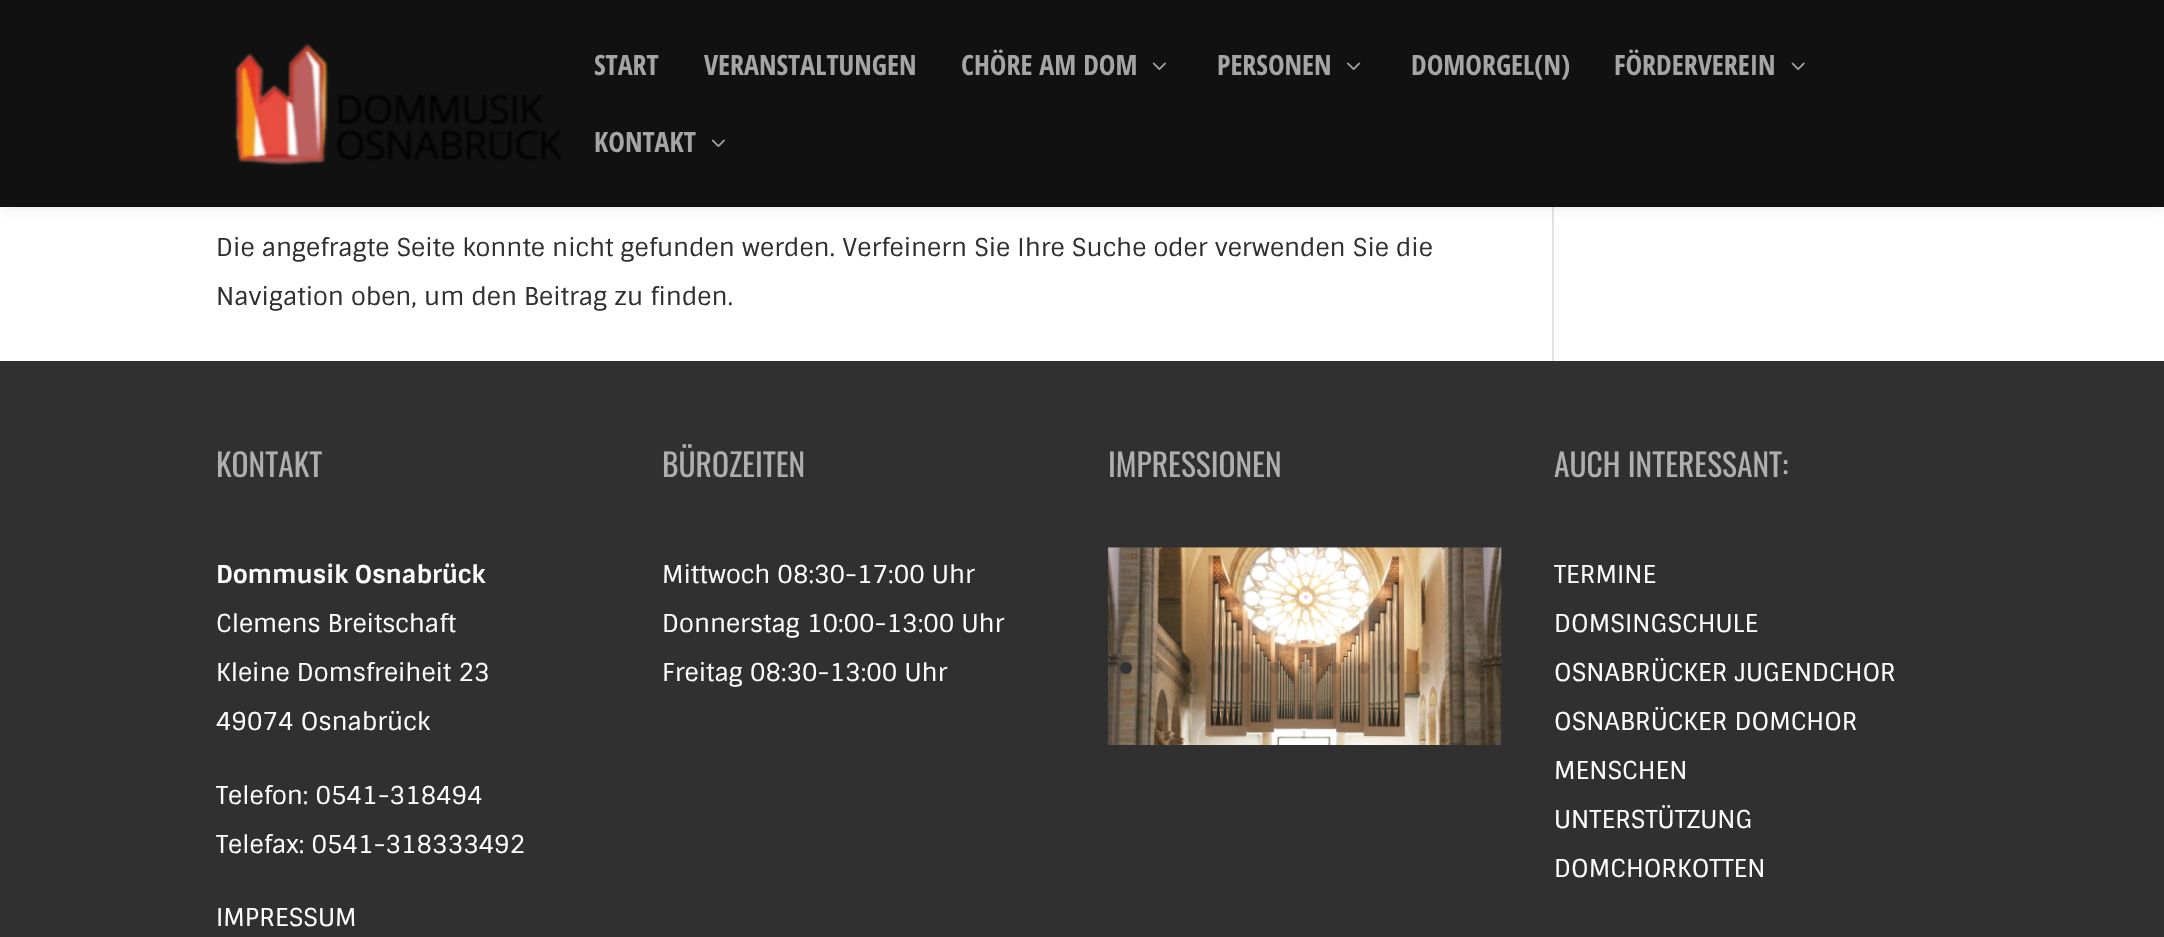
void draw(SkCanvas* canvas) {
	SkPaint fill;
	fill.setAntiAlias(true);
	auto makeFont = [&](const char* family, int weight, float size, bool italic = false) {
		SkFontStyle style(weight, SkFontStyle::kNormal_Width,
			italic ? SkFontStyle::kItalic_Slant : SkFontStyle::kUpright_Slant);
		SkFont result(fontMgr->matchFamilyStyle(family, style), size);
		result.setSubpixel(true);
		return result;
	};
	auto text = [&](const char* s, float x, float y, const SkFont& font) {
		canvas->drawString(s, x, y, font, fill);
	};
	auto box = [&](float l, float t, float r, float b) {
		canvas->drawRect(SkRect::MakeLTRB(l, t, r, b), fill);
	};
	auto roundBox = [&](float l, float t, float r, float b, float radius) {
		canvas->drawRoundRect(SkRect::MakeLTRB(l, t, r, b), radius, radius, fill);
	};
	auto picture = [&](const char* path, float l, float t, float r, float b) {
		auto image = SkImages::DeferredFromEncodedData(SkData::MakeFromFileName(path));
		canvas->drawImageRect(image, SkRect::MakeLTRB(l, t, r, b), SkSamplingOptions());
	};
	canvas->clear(0xFFFFFFFF);
	fill.setColor(0xFFE2E2E2);
	box(1552, 207, 1554, 361);
	fill.setColor(0x1A000000);
	fill.setMaskFilter(SkMaskFilter::MakeBlur(kNormal_SkBlurStyle, 6));
	canvas->drawRect(SkRect::MakeLTRB(0, 0, 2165, 207), fill);
	fill.setMaskFilter(nullptr);
	fill.setColor(0xFF111111);
	box(0, 0, 2164, 207);
	picture("image0.png", 234, 43, 562, 166);
	picture("image1.png", 1152, 62, 1166, 70);
	picture("image2.png", 1347, 62, 1361, 70);
	picture("image3.png", 1791, 62, 1805, 70);
	picture("image1.png", 711, 139, 725, 147);
	fill.setColor(0xFF303030);
	box(0, 361, 2164, 937);
	picture("image4.png", 1107, 547, 1502, 745);
	fill.setColor(0xFF333333);
	canvas->drawCircle(1126, 668, 6, fill);
	fill.setColor(0x26000000);
	canvas->drawCircle(1156, 668, 6, fill);
	canvas->drawCircle(1186, 668, 6, fill);
	roundBox(1209, 662, 1222, 674, 6);
	canvas->drawCircle(1245, 668, 6, fill);
	canvas->drawCircle(1275, 668, 6, fill);
	canvas->drawCircle(1305, 668, 6, fill);
	roundBox(1328, 662, 1341, 674, 6);
	canvas->drawCircle(1364, 668, 6, fill);
	canvas->drawCircle(1394, 668, 6, fill);
	canvas->drawCircle(1424, 668, 6, fill);
	roundBox(1447, 662, 1460, 674, 6);
	canvas->drawCircle(1483, 668, 6, fill);
	auto font1 = makeFont("Open Sans Condensed", 700, 28);
	fill.setColor(0xFFA5A5A5);
	text("START", 594, 75, font1);
	text("VERANSTALTUNGEN", 704, 75, font1);
	text("CHÖRE AM DOM", 961, 75, font1);
	text("PERSONEN", 1217, 75, font1);
	text("DOMORGEL(N)", 1411, 75, font1);
	text("FÖRDERVEREIN", 1614, 75, font1);
	text("KONTAKT", 594, 152, font1);
	auto font2 = makeFont("Sintony", 400, 24.5f);
	fill.setColor(0xFF303030);
	text("Die angefragte Seite konnte nicht gefunden werden. Verfeinern Sie Ihre Suche oder verwenden Sie die", 216, 256, font2);
	text("Navigation oben, um den Beitrag zu finden.", 216, 305, font2);
	auto font3 = makeFont("Oswald", 400, 31.5f);
	fill.setColor(0xFFAFAFAF);
	text("KONTAKT", 216, 477, font3);
	auto font4 = makeFont("Sintony", 700, 24.5f);
	fill.setColor(0xFFFFFFFF);
	text("Dommusik Osnabrück", 216, 583, font4);
	text("Clemens Breitschaft", 216, 632, font2);
	text("Kleine Domsfreiheit 23", 216, 681, font2);
	text("49074 Osnabrück", 216, 730, font2);
	text("Telefon: 0541-318494", 216, 804, font2);
	text("Telefax: 0541-318333492", 216, 853, font2);
	text("IMPRESSUM", 216, 926, font2);
	fill.setColor(0xFFAFAFAF);
	text("BÜROZEITEN", 662, 477, font3);
	fill.setColor(0xFFFFFFFF);
	text("Mittwoch 08:30-17:00 Uhr", 662, 583, font2);
	text("Donnerstag 10:00-13:00 Uhr", 662, 632, font2);
	text("Freitag 08:30-13:00 Uhr", 662, 681, font2);
	fill.setColor(0xFFAFAFAF);
	text("IMPRESSIONEN", 1108, 477, font3);
	text("AUCH INTERESSANT:", 1554, 477, font3);
	fill.setColor(0xFFFFFFFF);
	text("TERMINE", 1554, 583, font2);
	text("DOMSINGSCHULE", 1554, 632, font2);
	text("OSNABRÜCKER JUGENDCHOR", 1554, 681, font2);
	text("OSNABRÜCKER DOMCHOR", 1554, 730, font2);
	text("MENSCHEN", 1554, 779, font2);
	text("UNTERSTÜTZUNG", 1554, 828, font2);
	text("DOMCHORKOTTEN", 1554, 877, font2);
}
